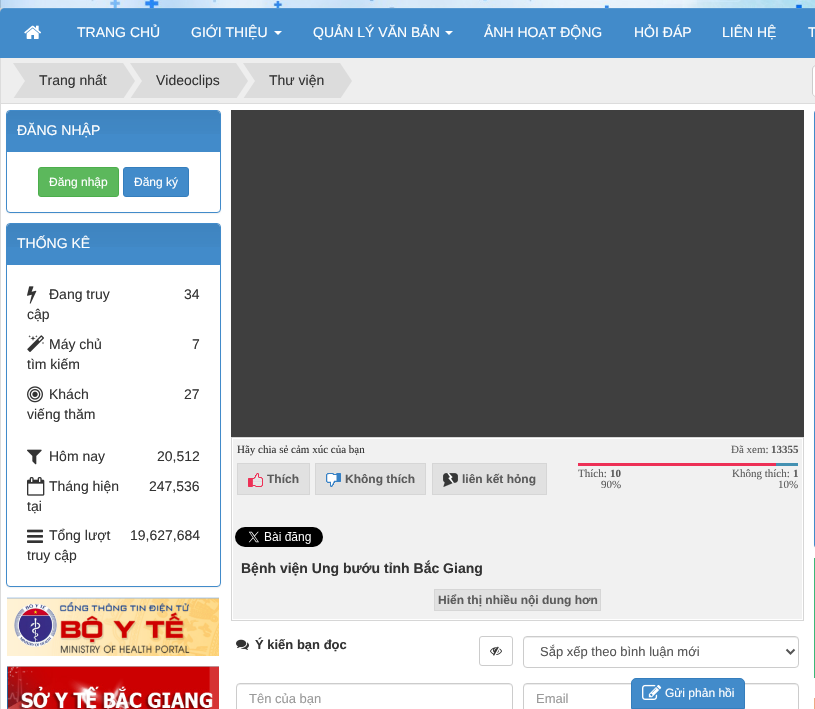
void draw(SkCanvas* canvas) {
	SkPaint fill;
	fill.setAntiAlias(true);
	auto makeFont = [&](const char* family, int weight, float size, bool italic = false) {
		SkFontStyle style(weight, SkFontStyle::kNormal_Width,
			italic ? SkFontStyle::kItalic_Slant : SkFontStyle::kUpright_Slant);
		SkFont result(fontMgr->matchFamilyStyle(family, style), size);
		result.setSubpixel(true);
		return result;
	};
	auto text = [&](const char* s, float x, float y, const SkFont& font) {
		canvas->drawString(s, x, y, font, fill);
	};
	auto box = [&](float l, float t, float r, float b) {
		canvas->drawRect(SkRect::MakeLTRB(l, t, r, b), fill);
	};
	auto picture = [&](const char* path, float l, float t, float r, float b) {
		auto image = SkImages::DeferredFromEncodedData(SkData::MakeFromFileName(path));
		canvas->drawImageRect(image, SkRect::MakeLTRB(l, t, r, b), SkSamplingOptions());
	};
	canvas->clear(0xFFFFFFFF);
	{
		const SkColor colors[] = {0xFFC2C2C2, 0xFFCCCCCC};
		const float stops[] = {0, 1};
		const SkPoint ends[] = {{540, -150}, {540, 58}};
		fill.setShader(SkGradientShader::MakeLinear(ends, colors, stops, 2, SkTileMode::kClamp));
		fill.setAlpha(255);
	}
	box(0, 8, 5, 13);
	picture("image0.png", 0, 0, 815, 8);
	fill.setShader(nullptr);
	fill.setColor(0xFF428BCA);
	canvas->drawPath(SkPathBuilder().moveTo(5, 8).lineTo(815, 8).cubicTo(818, 8, 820, 10, 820, 13).lineTo(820, 57).lineTo(0, 57).lineTo(0, 13).cubicTo(0, 10, 2, 8, 5, 8).close().detach(), fill);
	box(0, 57, 815, 58);
	fill.setColor(0x1AFFFFFF);
	box(0, 8, 815, 9);
	picture("image1.png", 24, 25, 41, 39);
	fill.setColor(0xFFFFFFFF);
	canvas->drawPath(SkPathBuilder().moveTo(274, 31).lineTo(282, 31).lineTo(278, 35).close().detach(), fill);
	canvas->drawPath(SkPathBuilder().moveTo(445, 31).lineTo(453, 31).lineTo(449, 35).close().detach(), fill);
	fill.setColor(0xFFDCDCDC);
	box(0, 58, 1, 709);
	box(1, 103, 815, 104);
	fill.setColor(0xFFEEEEEE);
	box(1, 58, 815, 103);
	fill.setColor(0xFFDCDCDC);
	box(25, 63, 121, 98);
	canvas->save();
	canvas->clipRect(SkRect::MakeLTRB(11, 63, 802, 98));
	canvas->drawPath(SkPathBuilder().moveTo(11, 60).lineTo(25, 60).lineTo(25, 81).close().moveTo(25, 102).lineTo(11, 102).lineTo(25, 81).close().detach(), fill);
	canvas->drawPath(SkPathBuilder().moveTo(121, 102).lineTo(121, 60).lineTo(135, 81).close().detach(), fill);
	canvas->restore();
	box(142, 63, 234, 98);
	canvas->save();
	canvas->clipRect(SkRect::MakeLTRB(11, 63, 802, 98));
	canvas->drawPath(SkPathBuilder().moveTo(128, 60).lineTo(142, 60).lineTo(142, 81).close().moveTo(142, 102).lineTo(128, 102).lineTo(142, 81).close().detach(), fill);
	canvas->drawPath(SkPathBuilder().moveTo(234, 102).lineTo(234, 60).lineTo(248, 81).close().detach(), fill);
	canvas->restore();
	box(255, 63, 338, 98);
	canvas->save();
	canvas->clipRect(SkRect::MakeLTRB(11, 63, 802, 98));
	canvas->drawPath(SkPathBuilder().moveTo(241, 60).lineTo(255, 60).lineTo(255, 81).close().moveTo(255, 102).lineTo(241, 102).lineTo(255, 81).close().detach(), fill);
	canvas->drawPath(SkPathBuilder().moveTo(338, 102).lineTo(338, 60).lineTo(352, 81).close().detach(), fill);
	canvas->restore();
	fill.setColor(0xFFFFFFFF);
	canvas->drawPath(SkPathBuilder().moveTo(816, 65).lineTo(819, 65).lineTo(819, 97).lineTo(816, 97).cubicTo(814, 97, 812, 95, 812, 93).lineTo(812, 69).cubicTo(812, 67, 814, 65, 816, 65).close().detach(), fill);
	fill.setColor(0xFFECECEC);
	canvas->drawPath(SkPathBuilder().moveTo(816, 67).lineTo(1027, 67).lineTo(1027, 66).lineTo(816, 66).cubicTo(814, 66, 813, 67, 813, 69).lineTo(813, 70).cubicTo(813, 68, 814, 67, 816, 67).close().detach(), fill);
	fill.setStyle(SkPaint::kStroke_Style);
	fill.setStrokeWidth(1);
	fill.setColor(0xFFCCCCCC);
	canvas->drawPath(SkPathBuilder().moveTo(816, 65.5f).lineTo(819.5f, 65.5f).lineTo(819.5f, 96.5f).lineTo(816, 96.5f).cubicTo(814, 96.5f, 812.5f, 95, 812.5f, 93).lineTo(812.5f, 69).cubicTo(812.5f, 67, 814, 65.5f, 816, 65.5f).close().detach(), fill);
	fill.setStyle(SkPaint::kFill_Style);
	fill.setColor(0x0D000000);
	fill.setMaskFilter(SkMaskFilter::MakeBlur(kNormal_SkBlurStyle, 0.5f));
	canvas->drawRoundRect(SkRect::MakeLTRB(6, 111, 221, 214), 4, 4, fill);
	fill.setMaskFilter(nullptr);
	fill.setColor(0xFFFFFFFF);
	canvas->drawRoundRect(SkRect::MakeLTRB(6.5f, 110.5f, 220.5f, 212.5f), 3.5f, 3.5f, fill);
	fill.setStyle(SkPaint::kStroke_Style);
	fill.setColor(0xFF428BCA);
	canvas->drawRoundRect(SkRect::MakeLTRB(6.5f, 110.5f, 220.5f, 212.5f), 3.5f, 3.5f, fill);
	fill.setStyle(SkPaint::kFill_Style);
	canvas->drawPath(SkPathBuilder().moveTo(10, 111).lineTo(217, 111).cubicTo(218.5f, 111, 220, 112.5f, 220, 114).lineTo(220, 152).lineTo(7, 152).lineTo(7, 114).cubicTo(7, 112.5f, 8.5f, 111, 10, 111).close().detach(), fill);
	{
		const SkColor colors[] = {0x0D000000, 0x00000000};
		const float stops[] = {0, 1};
		const SkPoint ends[] = {{114, 111}, {114, 151}};
		fill.setShader(SkGradientShader::MakeLinear(ends, colors, stops, 2, SkTileMode::kClamp));
		fill.setAlpha(255);
	}
	box(7, 111, 220, 134);
	fill.setShader(nullptr);
	fill.setColor(0xFF5CB85C);
	canvas->drawRoundRect(SkRect::MakeLTRB(38.5f, 167.5f, 118.5f, 196.5f), 2.5f, 2.5f, fill);
	fill.setStyle(SkPaint::kStroke_Style);
	fill.setColor(0xFF4CAE4C);
	canvas->drawRoundRect(SkRect::MakeLTRB(38.5f, 167.5f, 118.5f, 196.5f), 2.5f, 2.5f, fill);
	fill.setStyle(SkPaint::kFill_Style);
	fill.setColor(0xFF428BCA);
	canvas->drawRoundRect(SkRect::MakeLTRB(123.5f, 167.5f, 188.5f, 196.5f), 2.5f, 2.5f, fill);
	fill.setStyle(SkPaint::kStroke_Style);
	fill.setColor(0xFF357EBD);
	canvas->drawRoundRect(SkRect::MakeLTRB(123.5f, 167.5f, 188.5f, 196.5f), 2.5f, 2.5f, fill);
	fill.setStyle(SkPaint::kFill_Style);
	fill.setColor(0x0D000000);
	fill.setMaskFilter(SkMaskFilter::MakeBlur(kNormal_SkBlurStyle, 0.5f));
	canvas->drawRoundRect(SkRect::MakeLTRB(6, 224, 221, 588), 4, 4, fill);
	fill.setMaskFilter(nullptr);
	fill.setColor(0xFFFFFFFF);
	canvas->drawRoundRect(SkRect::MakeLTRB(6.5f, 223.5f, 220.5f, 586.5f), 3.5f, 3.5f, fill);
	fill.setStyle(SkPaint::kStroke_Style);
	fill.setColor(0xFF428BCA);
	canvas->drawRoundRect(SkRect::MakeLTRB(6.5f, 223.5f, 220.5f, 586.5f), 3.5f, 3.5f, fill);
	fill.setStyle(SkPaint::kFill_Style);
	canvas->drawPath(SkPathBuilder().moveTo(10, 224).lineTo(217, 224).cubicTo(218.5f, 224, 220, 225.5f, 220, 227).lineTo(220, 265).lineTo(7, 265).lineTo(7, 227).cubicTo(7, 225.5f, 8.5f, 224, 10, 224).close().detach(), fill);
	{
		const SkColor colors[] = {0x0D000000, 0x00000000};
		const float stops[] = {0, 1};
		const SkPoint ends[] = {{114, 224}, {114, 264}};
		fill.setShader(SkGradientShader::MakeLinear(ends, colors, stops, 2, SkTileMode::kClamp));
		fill.setAlpha(255);
	}
	box(7, 224, 220, 247);
	picture("image2.png", 27, 286, 37, 304);
	picture("image3.png", 27, 335, 44, 352);
	picture("image4.png", 27, 386, 43, 403);
	picture("image5.png", 27, 449, 42, 465);
	picture("image6.png", 27, 477, 45, 496);
	picture("image7.png", 27, 529, 43, 543);
	picture("image8.png", 7, 597, 219, 656);
	picture("image9.png", 7, 666, 219, 709);
	fill.setShader(nullptr);
	fill.setColor(0xFF3F3F3F);
	box(231, 110, 804, 437);
	fill.setStyle(SkPaint::kStroke_Style);
	fill.setColor(0xFFD6D6D6);
	canvas->drawRect(SkRect::MakeLTRB(231.5f, 437.5f, 803.5f, 620.5f), fill);
	fill.setStyle(SkPaint::kFill_Style);
	fill.setColor(0xFFF1F1F1);
	box(233, 439, 802, 619);
	fill.setColor(0xFFE1E1E1);
	canvas->drawRect(SkRect::MakeLTRB(237.5f, 463.5f, 309.5f, 494.5f), fill);
	fill.setStyle(SkPaint::kStroke_Style);
	fill.setColor(0xFFD6D6D6);
	canvas->drawRect(SkRect::MakeLTRB(237.5f, 463.5f, 309.5f, 494.5f), fill);
	picture("image10.png", 248, 473, 263, 487);
	fill.setStyle(SkPaint::kFill_Style);
	fill.setColor(0xFFE1E1E1);
	canvas->drawRect(SkRect::MakeLTRB(315.5f, 463.5f, 425.5f, 494.5f), fill);
	fill.setStyle(SkPaint::kStroke_Style);
	fill.setColor(0xFFD6D6D6);
	canvas->drawRect(SkRect::MakeLTRB(315.5f, 463.5f, 425.5f, 494.5f), fill);
	picture("image11.png", 326, 473, 341, 487);
	fill.setStyle(SkPaint::kFill_Style);
	fill.setColor(0xFFE1E1E1);
	canvas->drawRect(SkRect::MakeLTRB(432.5f, 463.5f, 546.5f, 494.5f), fill);
	fill.setStyle(SkPaint::kStroke_Style);
	fill.setColor(0xFFD6D6D6);
	canvas->drawRect(SkRect::MakeLTRB(432.5f, 463.5f, 546.5f, 494.5f), fill);
	picture("image12.png", 443, 473, 458, 487);
	fill.setStyle(SkPaint::kFill_Style);
	fill.setColor(0xFF4491B2);
	box(776, 463, 798, 466);
	fill.setColor(0xFFED3056);
	box(578, 463, 776, 466);
	picture("image13.png", 235, 527, 323, 547);
	fill.setColor(0xFFE1E1E1);
	canvas->drawRect(SkRect::MakeLTRB(434.5f, 589.5f, 600.5f, 610.5f), fill);
	fill.setStyle(SkPaint::kStroke_Style);
	fill.setColor(0xFFD6D6D6);
	canvas->drawRect(SkRect::MakeLTRB(434.5f, 589.5f, 600.5f, 610.5f), fill);
	picture("image14.png", 236, 639, 249, 650);
	fill.setColor(0xFFCCCCCC);
	canvas->drawRoundRect(SkRect::MakeLTRB(479.5f, 636.5f, 512.5f, 665.5f), 2.5f, 2.5f, fill);
	picture("image15.png", 490, 646, 502, 656);
	fill.setStyle(SkPaint::kFill_Style);
	fill.setColor(0xFFECECEC);
	canvas->drawPath(SkPathBuilder().moveTo(527, 638).lineTo(795, 638).cubicTo(797, 638, 798, 639, 798, 641).lineTo(798, 640).cubicTo(798, 638, 797, 637, 795, 637).lineTo(527, 637).cubicTo(525, 637, 524, 638, 524, 640).lineTo(524, 641).cubicTo(524, 639, 525, 638, 527, 638).close().detach(), fill);
	fill.setStyle(SkPaint::kStroke_Style);
	fill.setColor(0xFFCCCCCC);
	canvas->drawRoundRect(SkRect::MakeLTRB(523.5f, 636.5f, 798.5f, 667.5f), 3.5f, 3.5f, fill);
	fill.setStrokeWidth(2);
	fill.setColor(0xFF555555);
	canvas->drawPath(SkPathBuilder().moveTo(786.5f, 649.5f).lineTo(790.5f, 653.5f).lineTo(794.5f, 649.5f).detach(), fill);
	fill.setStyle(SkPaint::kFill_Style);
	fill.setColor(0xFFECECEC);
	canvas->drawPath(SkPathBuilder().moveTo(240, 685).lineTo(509, 685).cubicTo(511, 685, 512, 686, 512, 688).lineTo(512, 687).cubicTo(512, 685, 511, 684, 509, 684).lineTo(240, 684).cubicTo(238, 684, 237, 685, 237, 687).lineTo(237, 688).cubicTo(237, 686, 238, 685, 240, 685).close().detach(), fill);
	fill.setStyle(SkPaint::kStroke_Style);
	fill.setStrokeWidth(1);
	fill.setColor(0xFFCCCCCC);
	canvas->drawRoundRect(SkRect::MakeLTRB(236.5f, 683.5f, 512.5f, 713.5f), 3.5f, 3.5f, fill);
	fill.setStyle(SkPaint::kFill_Style);
	fill.setColor(0xFFECECEC);
	canvas->drawPath(SkPathBuilder().moveTo(527, 685).lineTo(795, 685).cubicTo(797, 685, 798, 686, 798, 688).lineTo(798, 687).cubicTo(798, 685, 797, 684, 795, 684).lineTo(527, 684).cubicTo(525, 684, 524, 685, 524, 687).lineTo(524, 688).cubicTo(524, 686, 525, 685, 527, 685).close().detach(), fill);
	fill.setStyle(SkPaint::kStroke_Style);
	fill.setColor(0xFFCCCCCC);
	canvas->drawRoundRect(SkRect::MakeLTRB(523.5f, 683.5f, 798.5f, 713.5f), 3.5f, 3.5f, fill);
	fill.setStyle(SkPaint::kFill_Style);
	fill.setColor(0x0D000000);
	fill.setMaskFilter(SkMaskFilter::MakeBlur(kNormal_SkBlurStyle, 0.5f));
	canvas->drawRoundRect(SkRect::MakeLTRB(814, 111, 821, 549), 4, 4, fill);
	fill.setMaskFilter(nullptr);
	fill.setStyle(SkPaint::kStroke_Style);
	fill.setColor(0xFF428BCA);
	canvas->drawRoundRect(SkRect::MakeLTRB(814.5f, 110.5f, 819.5f, 547.5f), 3.5f, 3.5f, fill);
	fill.setStyle(SkPaint::kFill_Style);
	fill.setColor(0xFF3CB878);
	box(814, 558, 815, 678);
	fill.setColor(0xFFF0A884);
	box(814, 698, 815, 709);
	fill.setColor(0xFF428BCA);
	canvas->drawPath(SkPathBuilder().moveTo(636, 678.5f).lineTo(740, 678.5f).cubicTo(742.5f, 678.5f, 744.5f, 680.5f, 744.5f, 683).lineTo(744.5f, 708.5f).lineTo(631.5f, 708.5f).lineTo(631.5f, 683).cubicTo(631.5f, 680.5f, 633.5f, 678.5f, 636, 678.5f).close().detach(), fill);
	fill.setStyle(SkPaint::kStroke_Style);
	fill.setColor(0xFF357EBD);
	canvas->drawPath(SkPathBuilder().moveTo(636, 678.5f).lineTo(740, 678.5f).cubicTo(742.5f, 678.5f, 744.5f, 680.5f, 744.5f, 683).lineTo(744.5f, 708.5f).lineTo(631.5f, 708.5f).lineTo(631.5f, 683).cubicTo(631.5f, 680.5f, 633.5f, 678.5f, 636, 678.5f).close().detach(), fill);
	picture("image16.png", 642, 684, 662, 700);
	auto font1 = makeFont("Liberation Sans", 400, 14);
	fill.setStyle(SkPaint::kFill_Style);
	fill.setColor(0xFFFFFFFF);
	text("TRANG CHỦ", 77, 37, font1);
	text("GIỚI THIỆU", 191, 37, font1);
	text("QUẢN LÝ VĂN BẢN", 313, 37, font1);
	text("ẢNH HOẠT ĐỘNG", 484, 37, font1);
	text("HỎI ĐÁP", 634, 37, font1);
	text("LIÊN HỆ", 722, 37, font1);
	text("T", 808, 37, font1);
	fill.setColor(0xFF333333);
	text("Trang nhất", 39, 85, font1);
	text("Videoclips", 156, 85, font1);
	text("Thư viện", 269, 85, font1);
	fill.setColor(0xFFFFFFFF);
	text("ĐĂNG NHẬP", 17, 135, font1);
	auto font2 = makeFont("Liberation Sans", 400, 12);
	text("Đăng nhập", 49, 186, font2);
	text("Đăng ký", 134, 186, font2);
	text("THỐNG KÊ", 17, 248, font1);
	fill.setColor(0xFF333333);
	text("Đang truy", 49, 299, font1);
	text("cập", 27, 319, font1);
	text("34", 184, 299, font1);
	text("Máy chủ", 49, 349, font1);
	text("tìm kiếm", 27, 369, font1);
	text("7", 192, 349, font1);
	text("Khách", 49, 399, font1);
	text("viếng thăm", 27, 419, font1);
	text("27", 184, 399, font1);
	text("Hôm nay", 49, 461, font1);
	text("20,512", 157, 461, font1);
	text("Tháng hiện", 49, 491, font1);
	text("tại", 27, 511, font1);
	text("247,536", 149, 491, font1);
	text("Tổng lượt", 49, 540, font1);
	text("truy cập", 27, 560, font1);
	text("19,627,684", 130, 540, font1);
	auto font3 = makeFont("Liberation Serif", 400, 11);
	text("Hãy chia sẻ cảm xúc của bạn", 237, 453, font3);
	auto font4 = makeFont("Liberation Sans", 700, 12);
	fill.setColor(0xFF5B5B5B);
	text("Thích", 267, 483, font4);
	text("Không thích", 345, 483, font4);
	text("liên kết hỏng", 462, 483, font4);
	text("Đã xem:", 731, 453, font3);
	auto font5 = makeFont("Liberation Serif", 700, 11);
	text("13355", 771, 453, font5);
	text("Thích:", 578, 477, font3);
	text("10", 610, 477, font5);
	text("90%", 601, 488, font3);
	text("Không thích:", 732, 477, font3);
	text("1", 793, 477, font5);
	text("10%", 778, 488, font3);
	auto font6 = makeFont("Liberation Sans", 700, 14);
	fill.setColor(0xFF333333);
	text("Bệnh viện Ung bướu tỉnh Bắc Giang", 241, 573, font6);
	fill.setColor(0xFF5B5B5B);
	text("Hiển thị nhiều nội dung hơn", 438, 604, font4);
	auto font7 = makeFont("Liberation Sans", 700, 13);
	fill.setColor(0xFF333333);
	text("Ý kiến bạn đọc", 255, 649, font7);
	auto font8 = makeFont("Liberation Sans", 400, 13);
	fill.setColor(0xFF555555);
	text("Sắp xếp theo bình luận mới", 540, 656, font8);
	fill.setColor(0xFF999999);
	text("Tên của bạn", 249, 703, font8);
	text("Email", 536, 703, font8);
	fill.setColor(0xFFFFFFFF);
	text("Gửi phản hồi", 665, 697, font2);
}
